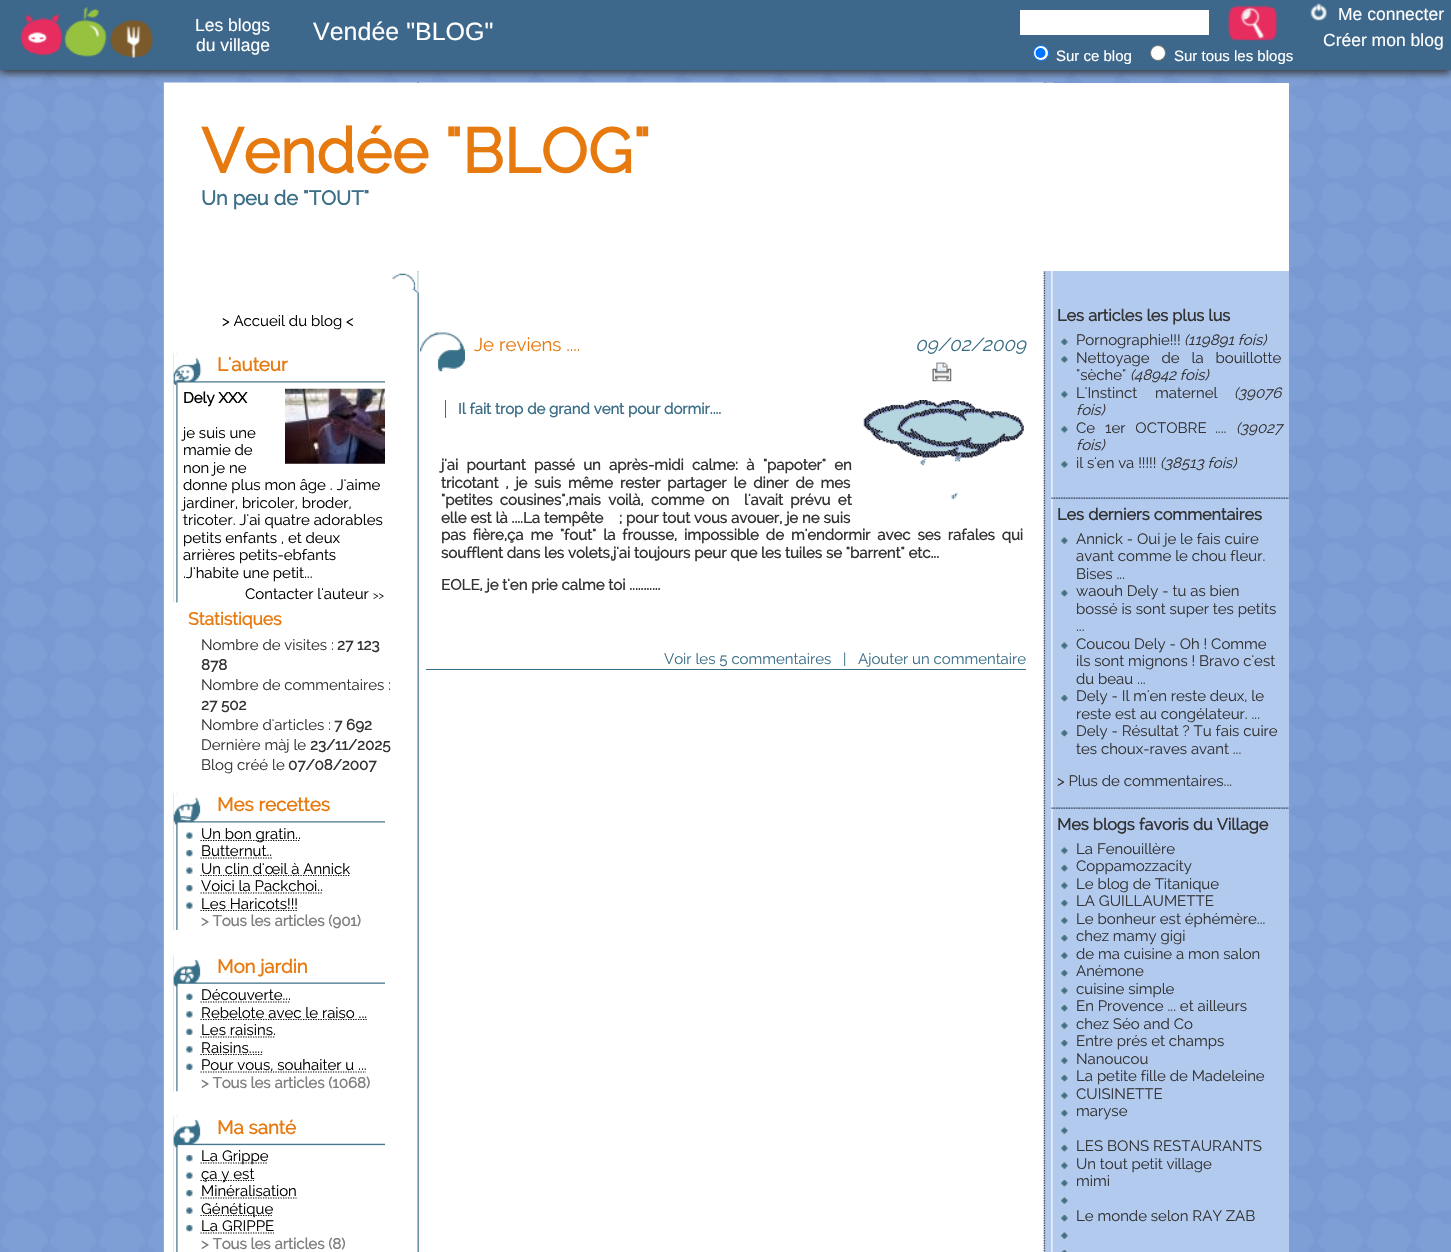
void draw(SkCanvas* canvas) {
	SkPaint fill;
	fill.setAntiAlias(true);
	auto makeFont = [&](const char* family, int weight, float size, bool italic = false) {
		SkFontStyle style(weight, SkFontStyle::kNormal_Width,
			italic ? SkFontStyle::kItalic_Slant : SkFontStyle::kUpright_Slant);
		SkFont result(fontMgr->matchFamilyStyle(family, style), size);
		result.setSubpixel(true);
		return result;
	};
	auto text = [&](const char* s, float x, float y, const SkFont& font) {
		canvas->drawString(s, x, y, font, fill);
	};
	auto spacedText = [&](const char* s, float x, float y, const SkFont& font, const SkPaint& ink, float letter, float word) {
		std::vector<SkGlyphID> glyphs(font.countText(s, strlen(s), SkTextEncoding::kUTF8));
		std::vector<float> xs(glyphs.size());
		font.textToGlyphs(s, strlen(s), SkTextEncoding::kUTF8, glyphs);
		font.getXPos(glyphs, xs, x);
		float extra = 0;
		for (size_t i = 0; i < glyphs.size(); i++) {
			xs[i] += extra;
			extra += letter + word * (glyphs[i] == font.unicharToGlyph(' '));
		}
		canvas->drawTextBlob(SkTextBlob::MakeFromPosHGlyphs(glyphs, xs, y, font), 0, 0, ink);
	};
	auto box = [&](float l, float t, float r, float b) {
		canvas->drawRect(SkRect::MakeLTRB(l, t, r, b), fill);
	};
	auto picture = [&](const char* path, float l, float t, float r, float b) {
		auto image = SkImages::DeferredFromEncodedData(SkData::MakeFromFileName(path));
		canvas->drawImageRect(image, SkRect::MakeLTRB(l, t, r, b), SkSamplingOptions());
	};
	canvas->clear(0xFF7899D1);
	picture("image0.png", 1, 70, 1451, 1252);
	fill.setColor(0xFFB3CAEF);
	box(1052, 271, 1289, 1252);
	picture("image4.png", 163, 82, 1053, 1252);
	fill.setColor(0xFFFFFFFF);
	box(417, 83, 1289, 271);
	fill.setColor(0xFF333333);
	fill.setMaskFilter(SkMaskFilter::MakeBlur(kNormal_SkBlurStyle, 4));
	canvas->drawRect(SkRect::MakeLTRB(0, 3, 1451, 73), fill);
	fill.setMaskFilter(nullptr);
	fill.setColor(0xFF3D688B);
	box(0, 0, 1451, 70);
	picture("image1.png", 20, 7, 153, 58);
	picture("image2.png", 1310, 3, 1327, 21);
	fill.setColor(0xFFFFFFFF);
	box(1020, 10, 1209, 35);
	picture("image3.png", 1228, 5, 1277, 41);
	canvas->drawCircle(1041, 53, 7.5f, fill);
	fill.setStyle(SkPaint::kStroke_Style);
	fill.setStrokeWidth(1);
	fill.setColor(0xFF0075FF);
	canvas->drawCircle(1041, 53, 7.5f, fill);
	fill.setStyle(SkPaint::kFill_Style);
	canvas->drawCircle(1040.5f, 53, 5, fill);
	fill.setColor(0xFFFFFFFF);
	canvas->drawCircle(1158, 53, 7.5f, fill);
	fill.setStyle(SkPaint::kStroke_Style);
	fill.setColor(0xFF767676);
	canvas->drawCircle(1158, 53, 7.5f, fill);
	picture("image5.png", 392, 271, 419, 293);
	picture("image6.png", 173, 353, 178, 603);
	picture("image7.png", 173, 353, 385, 385);
	picture("image8.png", 285, 388, 385, 464);
	picture("image9.png", 173, 793, 178, 930);
	picture("image10.png", 173, 793, 385, 825);
	picture("image11.png", 186, 832, 193, 839);
	fill.setStrokeWidth(1.2f);
	fill.setColor(0xFF000000);
	fill.setPathEffect(SkDashPathEffect::Make({{1.25f, 1.25f}}, 0));
	canvas->drawPath(SkPathBuilder().moveTo(200.5f, 840.5f).lineTo(300.5f, 840.5f).detach(), fill);
	fill.setPathEffect(nullptr);
	picture("image12.png", 186, 850, 193, 857);
	fill.setPathEffect(SkDashPathEffect::Make({{1.25f, 1.25f}}, 0));
	canvas->drawPath(SkPathBuilder().moveTo(200.5f, 858).lineTo(272, 858).detach(), fill);
	fill.setPathEffect(nullptr);
	picture("image11.png", 186, 867, 193, 874);
	fill.setPathEffect(SkDashPathEffect::Make({{1.25f, 1.25f}}, 0));
	canvas->drawPath(SkPathBuilder().moveTo(200.5f, 875.5f).lineTo(350, 875.5f).detach(), fill);
	fill.setPathEffect(nullptr);
	picture("image12.png", 186, 885, 193, 892);
	fill.setPathEffect(SkDashPathEffect::Make({{1.25f, 1.25f}}, 0));
	canvas->drawPath(SkPathBuilder().moveTo(200.5f, 893).lineTo(322.5f, 893).detach(), fill);
	fill.setPathEffect(nullptr);
	picture("image11.png", 186, 902, 193, 909);
	fill.setPathEffect(SkDashPathEffect::Make({{1.25f, 1.25f}}, 0));
	canvas->drawPath(SkPathBuilder().moveTo(200.5f, 910.5f).lineTo(297.5f, 910.5f).detach(), fill);
	fill.setPathEffect(nullptr);
	picture("image13.png", 173, 955, 178, 1092);
	picture("image14.png", 173, 955, 385, 987);
	picture("image15.png", 186, 993, 193, 1000);
	fill.setPathEffect(SkDashPathEffect::Make({{1.25f, 1.25f}}, 0));
	canvas->drawPath(SkPathBuilder().moveTo(200.5f, 1002).lineTo(290.5f, 1002).detach(), fill);
	fill.setPathEffect(nullptr);
	picture("image16.png", 186, 1011, 193, 1018);
	fill.setPathEffect(SkDashPathEffect::Make({{1.25f, 1.25f}}, 0));
	canvas->drawPath(SkPathBuilder().moveTo(200.5f, 1019.5f).lineTo(367, 1019.5f).detach(), fill);
	fill.setPathEffect(nullptr);
	picture("image15.png", 186, 1028, 193, 1035);
	fill.setPathEffect(SkDashPathEffect::Make({{1.25f, 1.25f}}, 0));
	canvas->drawPath(SkPathBuilder().moveTo(200.5f, 1037).lineTo(275.5f, 1037).detach(), fill);
	fill.setPathEffect(nullptr);
	picture("image16.png", 186, 1046, 193, 1053);
	fill.setPathEffect(SkDashPathEffect::Make({{1.25f, 1.25f}}, 0));
	canvas->drawPath(SkPathBuilder().moveTo(200.5f, 1054.5f).lineTo(262.5f, 1054.5f).detach(), fill);
	fill.setPathEffect(nullptr);
	picture("image15.png", 186, 1063, 193, 1070);
	fill.setPathEffect(SkDashPathEffect::Make({{1.25f, 1.25f}}, 0));
	canvas->drawPath(SkPathBuilder().moveTo(200.5f, 1072).lineTo(366, 1072).detach(), fill);
	fill.setPathEffect(nullptr);
	picture("image17.png", 173, 1116, 178, 1252);
	picture("image18.png", 173, 1116, 385, 1148);
	picture("image12.png", 186, 1155, 193, 1162);
	fill.setPathEffect(SkDashPathEffect::Make({{1.25f, 1.25f}}, 0));
	canvas->drawPath(SkPathBuilder().moveTo(200.5f, 1163).lineTo(268, 1163).detach(), fill);
	fill.setPathEffect(nullptr);
	picture("image19.png", 186, 1172, 193, 1179);
	fill.setPathEffect(SkDashPathEffect::Make({{1.25f, 1.25f}}, 0));
	canvas->drawPath(SkPathBuilder().moveTo(200.5f, 1180.5f).lineTo(254, 1180.5f).detach(), fill);
	fill.setPathEffect(nullptr);
	picture("image12.png", 186, 1190, 193, 1197);
	fill.setPathEffect(SkDashPathEffect::Make({{1.25f, 1.25f}}, 0));
	canvas->drawPath(SkPathBuilder().moveTo(200.5f, 1198).lineTo(296.5f, 1198).detach(), fill);
	fill.setPathEffect(nullptr);
	picture("image11.png", 186, 1207, 193, 1214);
	fill.setPathEffect(SkDashPathEffect::Make({{1.25f, 1.25f}}, 0));
	canvas->drawPath(SkPathBuilder().moveTo(200.5f, 1215.5f).lineTo(273, 1215.5f).detach(), fill);
	fill.setPathEffect(nullptr);
	picture("image12.png", 186, 1225, 193, 1232);
	fill.setPathEffect(SkDashPathEffect::Make({{1.25f, 1.25f}}, 0));
	canvas->drawPath(SkPathBuilder().moveTo(200.5f, 1233).lineTo(274, 1233).detach(), fill);
	fill.setPathEffect(nullptr);
	picture("image20.png", 420, 332, 465, 372);
	picture("image21.png", 932, 362, 952, 382);
	fill.setStyle(SkPaint::kFill_Style);
	fill.setColor(0xFF3C6F87);
	box(445, 400, 446, 418);
	picture("image22.png", 863, 400, 1024, 499);
	box(426, 669, 1026, 670);
	picture("image23.png", 1051, 497, 1289, 499);
	picture("image24.png", 1061, 338, 1068, 345);
	picture("image25.png", 1061, 356, 1068, 363);
	picture("image25.png", 1061, 391, 1068, 398);
	picture("image25.png", 1061, 426, 1068, 433);
	picture("image25.png", 1061, 461, 1068, 468);
	picture("image23.png", 1051, 807, 1289, 809);
	picture("image26.png", 1061, 537, 1068, 544);
	picture("image27.png", 1061, 590, 1068, 597);
	picture("image26.png", 1061, 642, 1068, 649);
	picture("image27.png", 1061, 695, 1068, 702);
	picture("image27.png", 1061, 730, 1068, 737);
	picture("image26.png", 1061, 847, 1068, 854);
	picture("image27.png", 1061, 865, 1068, 872);
	picture("image26.png", 1061, 882, 1068, 889);
	picture("image27.png", 1061, 900, 1068, 907);
	picture("image26.png", 1061, 917, 1068, 924);
	picture("image27.png", 1061, 935, 1068, 942);
	picture("image26.png", 1061, 952, 1068, 959);
	picture("image27.png", 1061, 970, 1068, 977);
	picture("image26.png", 1061, 987, 1068, 994);
	picture("image27.png", 1061, 1005, 1068, 1012);
	picture("image28.png", 1061, 1022, 1068, 1029);
	picture("image27.png", 1061, 1040, 1068, 1047);
	picture("image26.png", 1061, 1057, 1068, 1064);
	picture("image27.png", 1061, 1075, 1068, 1082);
	picture("image26.png", 1061, 1092, 1068, 1099);
	picture("image27.png", 1061, 1110, 1068, 1117);
	picture("image26.png", 1061, 1127, 1068, 1134);
	picture("image27.png", 1061, 1145, 1068, 1152);
	picture("image26.png", 1061, 1162, 1068, 1169);
	picture("image27.png", 1061, 1180, 1068, 1187);
	picture("image26.png", 1061, 1197, 1068, 1204);
	picture("image27.png", 1061, 1215, 1068, 1222);
	picture("image26.png", 1061, 1232, 1068, 1239);
	picture("image29.png", 1061, 1250, 1068, 1252);
	auto font1 = makeFont("Liberation Sans", 400, 17.5f);
	fill.setColor(0xFFFFFFFF);
	text("Les blogs", 195, 31, font1);
	text("du village", 196, 51, font1);
	auto font2 = makeFont("Liberation Sans", 400, 25);
	text("Vendée \"BLOG\"", 313, 40, font2);
	text("Me connecter", 1338, 20, font1);
	text("Créer mon blog", 1323, 46, font1);
	auto font3 = makeFont("Liberation Sans", 400, 15);
	text("Sur ce blog", 1056, 61, font3);
	text("Sur tous les blogs", 1174, 61, font3);
	auto font4 = makeFont("Raleway", 700, 62.5f);
	fill.setColor(0xFFE77A0F);
	text("Vendée \"BLOG\"", 201, 173, font4);
	auto font5 = makeFont("Raleway", 700, 20);
	fill.setColor(0xFF3C6F87);
	text("Un peu de \"TOUT\"", 201, 205, font5);
	auto font6 = makeFont("Raleway", 400, 15);
	fill.setColor(0xFF000000);
	text("> Accueil du blog <", 222, 326, font6);
	auto font7 = makeFont("Raleway", 700, 18.75f);
	fill.setColor(0xFFE77A0F);
	text("L'auteur", 217, 371, font7);
	auto font8 = makeFont("Raleway", 700, 15);
	fill.setColor(0xFF000000);
	text("Dely XXX", 183, 403, font8);
	text("je suis une", 183, 438, font6);
	text("mamie de", 183, 455, font6);
	text("non je ne", 183, 473, font6);
	text("donne plus mon âge . J'aime", 183, 490, font6);
	text("jardiner, bricoler, broder,", 183, 508, font6);
	text("tricoter. J'ai quatre adorables", 183, 525, font6);
	text("petits enfants , et deux", 183, 543, font6);
	text("arrières petits-ebfants", 183, 560, font6);
	text(".J'habite une petit...", 183, 578, font6);
	text("Contacter l'auteur", 245, 599, font6);
	auto font9 = makeFont("Raleway", 400, 11);
	text(">>", 373, 599, font9);
	auto font10 = makeFont("Raleway", 700, 17.5f);
	fill.setColor(0xFFE77A0F);
	text("Statistiques", 188, 625, font10);
	fill.setColor(0xFF333333);
	text("Nombre de visites :", 201, 650, font6);
	text("27 123", 337, 650, font8);
	text("878", 201, 670, font8);
	text("Nombre de commentaires :", 201, 690, font6);
	text("27 502", 201, 710, font8);
	text("Nombre d'articles :", 201, 730, font6);
	text("7 692", 334, 730, font8);
	text("Dernière màj le", 201, 750, font6);
	text("23/11/2025", 310, 750, font8);
	text("Blog créé le", 201, 770, font6);
	text("07/08/2007", 288, 770, font8);
	fill.setColor(0xFFE77A0F);
	text("Mes recettes", 217, 811, font7);
	fill.setColor(0xFF000000);
	text("Un bon gratin..", 201, 839, font6);
	text("Butternut..", 201, 856, font6);
	text("Un clin d'œil à Annick", 201, 874, font6);
	text("Voici la Packchoi..", 201, 891, font6);
	text("Les Haricots!!!", 201, 909, font6);
	fill.setColor(0xFF7F7F7F);
	text("> Tous les articles (901)", 201, 926, font8);
	fill.setColor(0xFFE77A0F);
	text("Mon jardin", 217, 973, font7);
	fill.setColor(0xFF000000);
	text("Découverte...", 201, 1000, font6);
	text("Rebelote avec le raiso ...", 201, 1018, font6);
	text("Les raisins.", 201, 1035, font6);
	text("Raisins.....", 201, 1053, font6);
	text("Pour vous, souhaiter u ...", 201, 1070, font6);
	fill.setColor(0xFF7F7F7F);
	text("> Tous les articles (1068)", 201, 1088, font8);
	fill.setColor(0xFFE77A0F);
	text("Ma santé", 217, 1134, font7);
	fill.setColor(0xFF000000);
	text("La Grippe", 201, 1161, font6);
	text("ça y est", 201, 1179, font6);
	text("Minéralisation", 201, 1196, font6);
	text("Génétique", 201, 1214, font6);
	text("La GRIPPE", 201, 1231, font6);
	fill.setColor(0xFF7F7F7F);
	text("> Tous les articles (8)", 201, 1249, font8);
	auto font11 = makeFont("Raleway", 400, 18.75f);
	fill.setColor(0xFFE77A0F);
	text("Je reviens ....", 474, 351, font11);
	auto font12 = makeFont("Raleway", 400, 18.75f, true);
	fill.setColor(0xFF3C6F87);
	text("09/02/2009", 915, 351, font12);
	text("Il fait trop de grand vent pour dormir....", 458, 414, font8);
	fill.setColor(0xFF333333);
	spacedText("j'ai pourtant passé un après-midi calme: à \"papoter\" en", 441, 470, font8, fill, 0, 4.5f);
	spacedText("tricotant , je suis même rester partager le diner de mes", 441, 488, font8, fill, 0, 3.1f);
	spacedText("\"petites cousines\",mais voilà, comme on  l'avait prévu et", 441, 505, font8, fill, 0, 3.5f);
	spacedText("elle est là ....La tempête    ; pour tout vous avouer, je ne suis", 441, 523, font8, fill, 0, 0.1f);
	spacedText("pas fière,ça me \"fout\" la frousse, impossible de m'endormir avec ses rafales qui", 441, 540, font8, fill, 0, 3.1f);
	text("soufflent dans les volets,j'ai toujours peur que les tuiles se \"barrent\" etc...", 441, 558, font8);
	text("EOLE, je t'en prie calme toi ...........", 441, 590, font8);
	fill.setColor(0xFF3C6F87);
	text("Voir les 5 commentaires", 664, 664, font6);
	text("|", 843, 664, font6);
	text("Ajouter un commentaire", 858, 664, font6);
	auto font13 = makeFont("Raleway", 700, 16.25f);
	fill.setColor(0xFF333333);
	text("Les articles les plus lus", 1057, 321, font13);
	text("Pornographie!!!", 1076, 345, font6);
	auto font14 = makeFont("Raleway", 400, 15, true);
	text("(119891 fois)", 1184, 345, font14);
	spacedText("Nettoyage de la bouillotte", 1076, 363, font6, fill, 0, 8);
	text("\"sèche\"", 1076, 380, font6);
	text("(48942 fois)", 1130, 380, font14);
	spacedText("L'Instinct maternel", 1076, 398, font6, fill, 0, 14);
	text("(39076", 1234, 398, font14);
	text("fois)", 1076, 415, font14);
	spacedText("Ce 1er OCTOBRE", 1076, 433, font6, fill, 0, 6);
	text("....", 1215, 433, font6);
	text("(39027", 1236, 433, font14);
	text("fois)", 1076, 450, font14);
	text("il s'en va !!!!!", 1076, 468, font6);
	text("(38513 fois)", 1160, 468, font14);
	text("Les derniers commentaires", 1057, 520, font13);
	text("Annick - Oui je le fais cuire", 1076, 544, font6);
	text("avant comme le chou fleur.", 1076, 561, font6);
	text("Bises ...", 1076, 579, font6);
	text("waouh Dely - tu as bien", 1076, 596, font6);
	text("bossé is sont super tes petits", 1076, 614, font6);
	text("...", 1076, 631, font6);
	text("Coucou Dely - Oh ! Comme", 1076, 649, font6);
	text("ils sont mignons ! Bravo c'est", 1076, 666, font6);
	text("du beau ...", 1076, 684, font6);
	text("Dely - Il m'en reste deux, le", 1076, 701, font6);
	text("reste est au congélateur. ...", 1076, 719, font6);
	text("Dely - Résultat ? Tu fais cuire", 1076, 736, font6);
	text("tes choux-raves avant ...", 1076, 754, font6);
	text("> Plus de commentaires...", 1057, 786, font6);
	text("Mes blogs favoris du Village", 1057, 830, font13);
	text("La Fenouillère", 1076, 854, font6);
	text("Coppamozzacity", 1076, 871, font6);
	text("Le blog de Titanique", 1076, 889, font6);
	text("LA GUILLAUMETTE", 1076, 906, font6);
	text("Le bonheur est éphémère...", 1076, 924, font6);
	text("chez mamy gigi", 1076, 941, font6);
	text("de ma cuisine a mon salon", 1076, 959, font6);
	text("Anémone", 1076, 976, font6);
	text("cuisine simple", 1076, 994, font6);
	text("En Provence ... et ailleurs", 1076, 1011, font6);
	text("chez Séo and Co", 1076, 1029, font6);
	text("Entre prés et champs", 1076, 1046, font6);
	text("Nanoucou", 1076, 1064, font6);
	text("La petite fille de Madeleine", 1076, 1081, font6);
	text("CUISINETTE", 1076, 1099, font6);
	text("maryse", 1076, 1116, font6);
	text("LES BONS RESTAURANTS", 1076, 1151, font6);
	text("Un tout petit village", 1076, 1169, font6);
	text("mimi", 1076, 1186, font6);
	text("Le monde selon RAY ZAB", 1076, 1221, font6);
}
